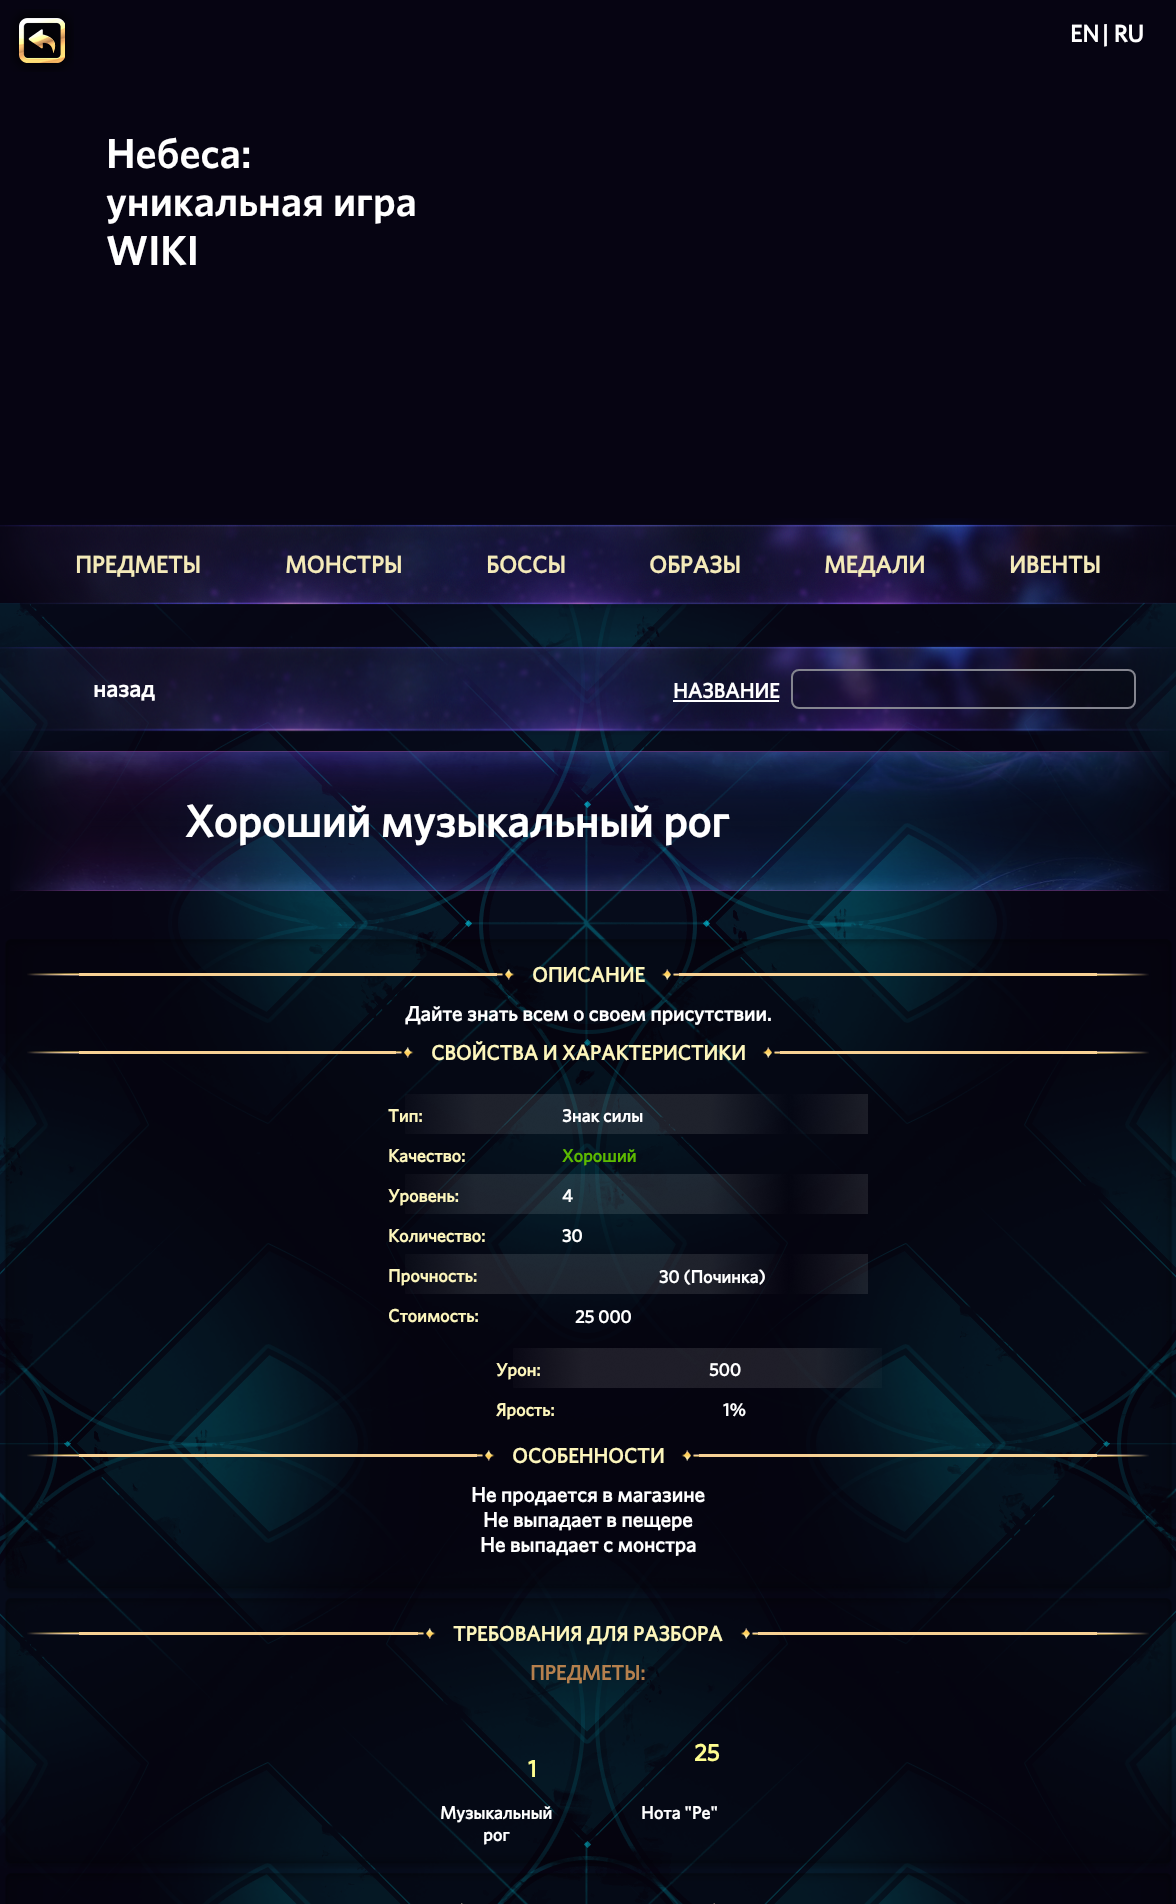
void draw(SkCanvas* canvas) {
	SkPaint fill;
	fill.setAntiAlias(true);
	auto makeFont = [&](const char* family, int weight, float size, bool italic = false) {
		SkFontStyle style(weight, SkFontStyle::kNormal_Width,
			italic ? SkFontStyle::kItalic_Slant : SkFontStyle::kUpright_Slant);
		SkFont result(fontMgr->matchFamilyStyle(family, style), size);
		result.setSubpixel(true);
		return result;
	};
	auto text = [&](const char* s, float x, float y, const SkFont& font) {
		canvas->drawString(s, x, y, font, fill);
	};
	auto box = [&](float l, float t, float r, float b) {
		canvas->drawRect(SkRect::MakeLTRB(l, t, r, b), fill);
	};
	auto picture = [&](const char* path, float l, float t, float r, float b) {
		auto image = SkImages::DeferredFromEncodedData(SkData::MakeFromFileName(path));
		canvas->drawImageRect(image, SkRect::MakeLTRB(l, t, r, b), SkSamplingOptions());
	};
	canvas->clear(0xFF060412);
	picture("image0.png", 10, 9, 74, 72);
	picture("image4.png", 10, 751, 1169, 891);
	picture("image2.png", 0, 603, 1176, 1904);
	picture("image1.png", 0, 518, 1176, 608);
	picture("image3.png", 0, 640, 1176, 735);
	fill.setColor(0xFFFFFFFF);
	box(673, 700, 779, 702);
	fill.setColor(0x33000000);
	canvas->drawRoundRect(SkRect::MakeLTRB(792, 670, 1135, 708), 7, 7, fill);
	fill.setStyle(SkPaint::kStroke_Style);
	fill.setStrokeWidth(2);
	fill.setColor(0xFF84858F);
	canvas->drawRoundRect(SkRect::MakeLTRB(792, 670, 1135, 708), 7, 7, fill);
	picture("image5.png", 4, 939, 1173, 1594);
	fill.setStyle(SkPaint::kFill_Style);
	fill.setColor(0xFFF8D194);
	box(79, 973, 497, 976);
	picture("image6.png", 27, 973, 79, 976);
	picture("image7.png", 497, 969, 515, 980);
	box(679, 973, 1097, 976);
	picture("image8.png", 661, 969, 679, 980);
	picture("image9.png", 1097, 973, 1149, 976);
	box(79, 1051, 396, 1054);
	picture("image10.png", 27, 1051, 79, 1054);
	picture("image11.png", 396, 1047, 414, 1058);
	box(780, 1051, 1097, 1054);
	picture("image12.png", 762, 1047, 780, 1058);
	picture("image13.png", 1097, 1051, 1149, 1054);
	picture("image14.png", 405, 1094, 868, 1134);
	picture("image15.png", 405, 1174, 868, 1214);
	picture("image16.png", 405, 1254, 868, 1294);
	picture("image17.png", 513, 1348, 882, 1388);
	box(79, 1454, 477, 1457);
	picture("image18.png", 27, 1454, 79, 1457);
	picture("image19.png", 477, 1450, 495, 1461);
	box(699, 1454, 1097, 1457);
	picture("image20.png", 681, 1450, 699, 1461);
	picture("image21.png", 1097, 1454, 1149, 1457);
	picture("image22.png", 4, 1598, 1173, 1869);
	box(79, 1632, 418, 1635);
	picture("image23.png", 27, 1632, 79, 1635);
	picture("image24.png", 418, 1628, 436, 1639);
	box(758, 1632, 1097, 1635);
	picture("image25.png", 740, 1628, 758, 1639);
	picture("image26.png", 1097, 1632, 1149, 1635);
	picture("image27.png", 5, 1873, 1172, 1904);
	picture("image28.png", 461, 1903, 463, 1904);
	picture("image29.png", 713, 1903, 715, 1904);
	auto font1 = makeFont("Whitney", 700, 24);
	fill.setColor(0xFFFFFFFF);
	text("EN", 1070, 42, font1);
	text("| RU", 1102, 42, font1);
	auto font2 = makeFont("Whitney", 600, 42);
	text("Небеса:", 106, 168, font2);
	text("уникальная игра", 106, 216, font2);
	text("WIKI", 106, 265, font2);
	fill.setColor(0xFFF4EAB9);
	text("ПРЕДМЕТЫ", 75, 573, font1);
	text("МОНСТРЫ", 285, 573, font1);
	text("БОССЫ", 486, 573, font1);
	text("ОБРАЗЫ", 649, 573, font1);
	text("МЕДАЛИ", 824, 573, font1);
	text("ИВЕНТЫ", 1009, 573, font1);
	fill.setColor(0xFFFFFFFF);
	text("назад", 93, 697, font1);
	auto font3 = makeFont("Whitney", 700, 21);
	text("НАЗВАНИЕ", 673, 698, font3);
	auto font4 = makeFont("Whitney", 700, 45);
	text("Хороший музыкальный рог", 185, 837, font4);
	fill.setColor(0xFFFDF6BC);
	text("ОПИСАНИЕ", 532, 982, font3);
	fill.setColor(0xFFFFFFFF);
	text("Дайте знать всем о своем присутствии.", 405, 1021, font3);
	fill.setColor(0xFFFDF6BC);
	text("СВОЙСТВА И ХАРАКТЕРИСТИКИ", 431, 1060, font3);
	auto font5 = makeFont("Whitney", 700, 18);
	text("Тип:", 388, 1122, font5);
	fill.setColor(0xFFFFFFFF);
	text("Знак силы", 562, 1122, font5);
	fill.setColor(0xFFFDF6BC);
	text("Качество:", 388, 1162, font5);
	fill.setColor(0xFF5CBA00);
	text("Хороший", 562, 1162, font5);
	fill.setColor(0xFFFDF6BC);
	text("Уровень:", 388, 1202, font5);
	fill.setColor(0xFFFFFFFF);
	text("4", 562, 1202, font5);
	fill.setColor(0xFFFDF6BC);
	text("Количество:", 388, 1242, font5);
	fill.setColor(0xFFFFFFFF);
	text("30", 562, 1242, font5);
	fill.setColor(0xFFFDF6BC);
	text("Прочность:", 388, 1282, font5);
	fill.setColor(0xFFFFFFFF);
	text("30 (Починка)", 659, 1283, font5);
	fill.setColor(0xFFFDF6BC);
	text("Стоимость:", 388, 1322, font5);
	fill.setColor(0xFFFFFFFF);
	text("25 000", 575, 1323, font5);
	fill.setColor(0xFFFDF6BC);
	text("Урон:", 496, 1376, font5);
	fill.setColor(0xFFFFFFFF);
	text("500", 709, 1376, font5);
	fill.setColor(0xFFFDF6BC);
	text("Ярость:", 496, 1416, font5);
	fill.setColor(0xFFFFFFFF);
	text("1%", 723, 1416, font5);
	fill.setColor(0xFFFDF6BC);
	text("ОСОБЕННОСТИ", 512, 1463, font3);
	fill.setColor(0xFFFFFFFF);
	text("Не продается в магазине", 471, 1502, font3);
	text("Не выпадает в пещере", 483, 1527, font3);
	text("Не выпадает с монстра", 480, 1552, font3);
	fill.setColor(0xFFFDF6BC);
	text("ТРЕБОВАНИЯ ДЛЯ РАЗБОРА", 453, 1641, font3);
	fill.setColor(0xFFB5804D);
	text("ПРЕДМЕТЫ:", 530, 1680, font3);
	fill.setColor(0xFFFFFE90);
	text("1", 528, 1777, font1);
	fill.setColor(0xFFFFFFFF);
	text("Музыкальный", 440, 1819, font5);
	text("рог", 483, 1841, font5);
	fill.setColor(0xFFFFFE90);
	text("25", 694, 1761, font1);
	fill.setColor(0xFFFFFFFF);
	text("Нота \"Ре\"", 641, 1819, font5);
}
